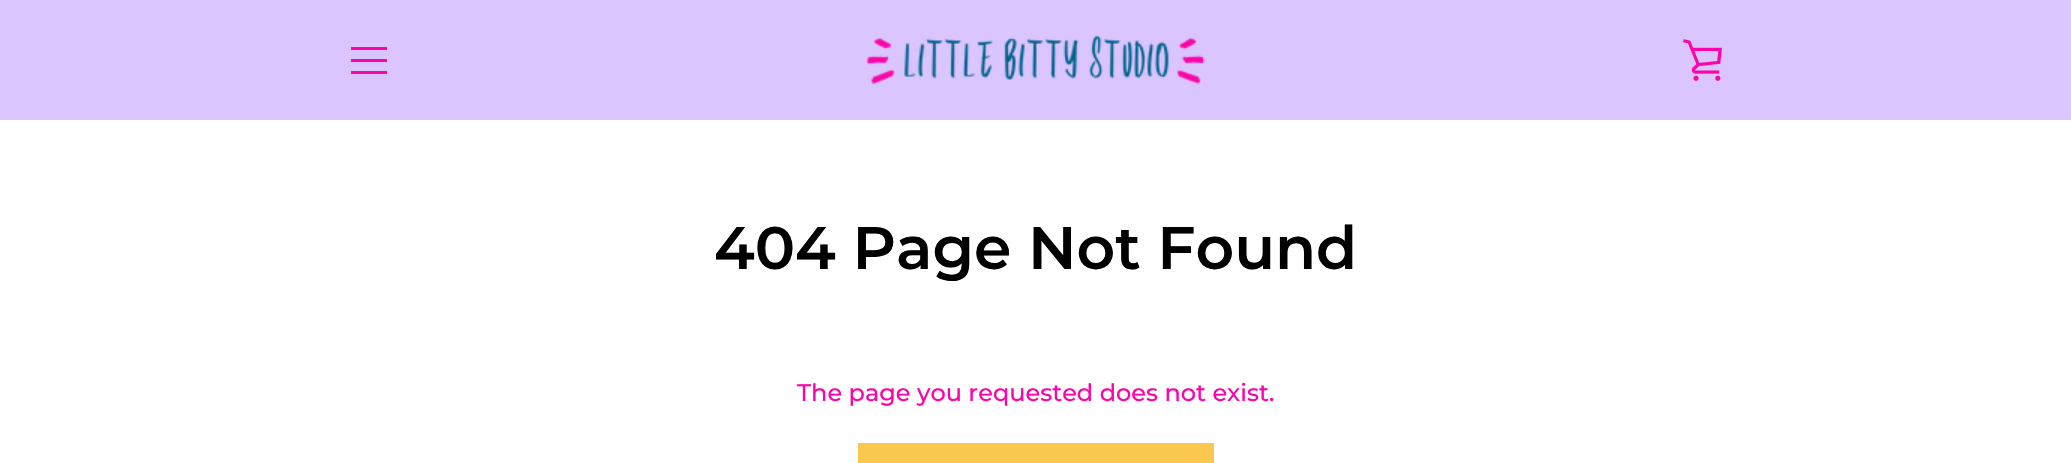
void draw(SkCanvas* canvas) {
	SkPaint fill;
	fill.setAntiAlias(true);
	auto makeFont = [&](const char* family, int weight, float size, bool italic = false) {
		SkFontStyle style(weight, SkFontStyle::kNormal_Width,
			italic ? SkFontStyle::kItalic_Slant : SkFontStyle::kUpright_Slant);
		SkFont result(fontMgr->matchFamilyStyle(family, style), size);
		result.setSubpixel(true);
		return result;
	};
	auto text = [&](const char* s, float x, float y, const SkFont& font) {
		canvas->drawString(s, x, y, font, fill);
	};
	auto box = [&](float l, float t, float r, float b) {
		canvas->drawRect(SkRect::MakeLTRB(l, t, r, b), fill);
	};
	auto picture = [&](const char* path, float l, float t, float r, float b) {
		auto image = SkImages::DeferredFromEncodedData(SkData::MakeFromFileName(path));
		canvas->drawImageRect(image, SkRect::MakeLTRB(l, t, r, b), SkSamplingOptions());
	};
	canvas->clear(0xFFFFFFFF);
	fill.setColor(0xFFDAC5FF);
	box(0, 0, 2071, 120);
	fill.setColor(0xFFFC04AA);
	box(351, 47, 387, 50);
	box(351, 59, 387, 62);
	box(351, 71, 387, 74);
	picture("image0.png", 866, 35, 1205, 85);
	picture("image1.png", 1683, 39, 1722, 81);
	fill.setColor(0xFFFBC84F);
	box(858, 443, 1214, 463);
	auto font1 = makeFont("Montserrat", 600, 60);
	fill.setColor(0xFF000000);
	text("404 Page Not Found", 714, 269, font1);
	auto font2 = makeFont("Montserrat", 500, 24);
	fill.setColor(0xFFFC04AA);
	text("The page you requested does not exist.", 797, 401, font2);
}
